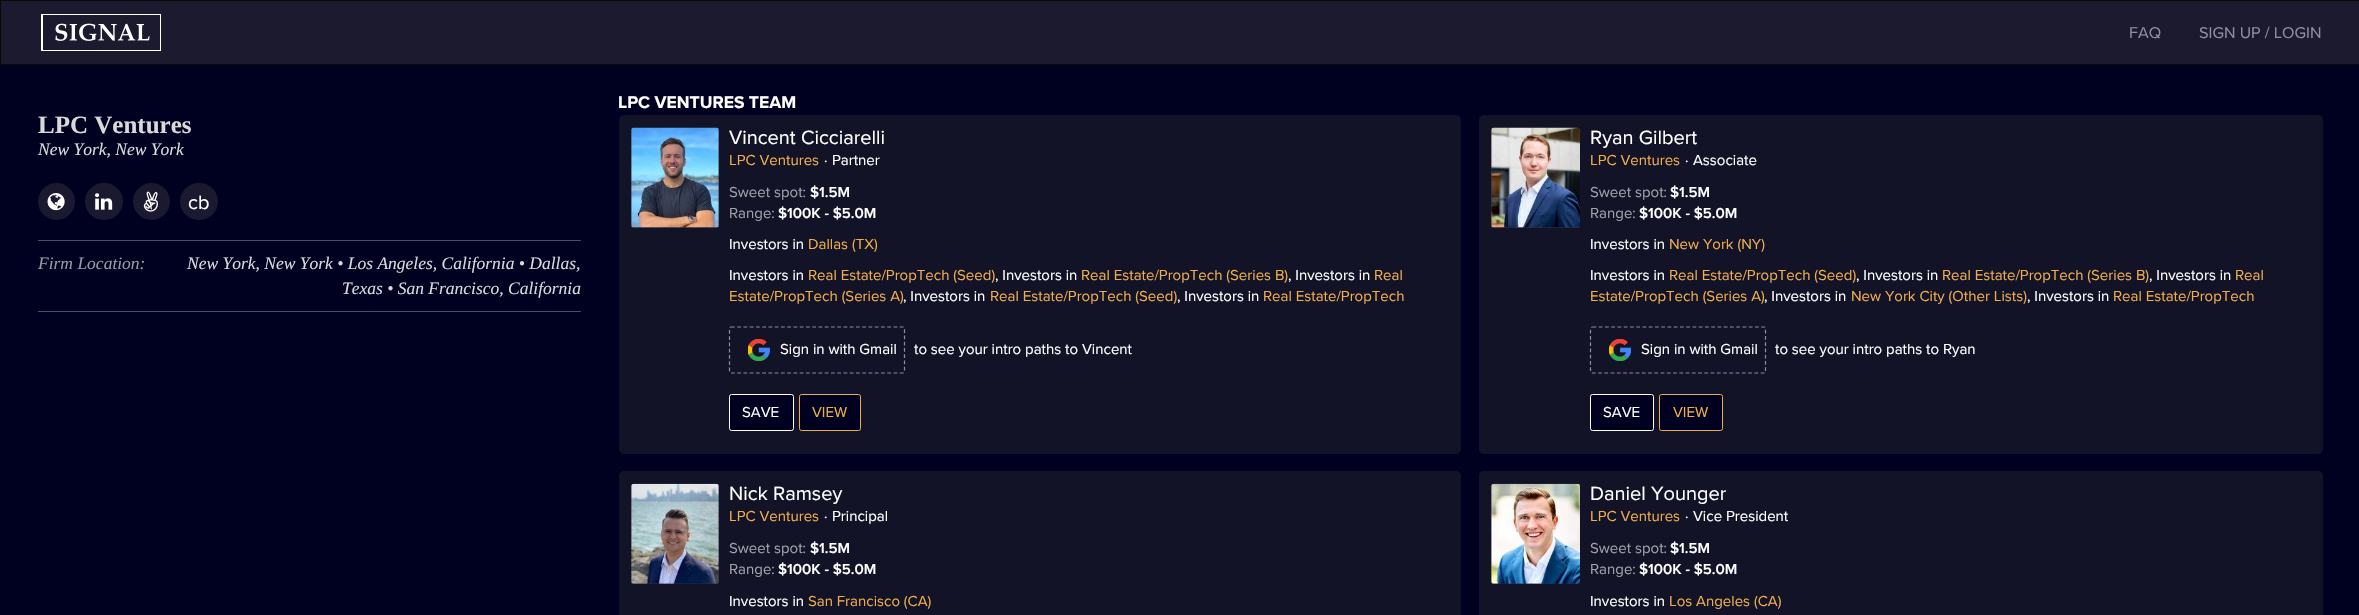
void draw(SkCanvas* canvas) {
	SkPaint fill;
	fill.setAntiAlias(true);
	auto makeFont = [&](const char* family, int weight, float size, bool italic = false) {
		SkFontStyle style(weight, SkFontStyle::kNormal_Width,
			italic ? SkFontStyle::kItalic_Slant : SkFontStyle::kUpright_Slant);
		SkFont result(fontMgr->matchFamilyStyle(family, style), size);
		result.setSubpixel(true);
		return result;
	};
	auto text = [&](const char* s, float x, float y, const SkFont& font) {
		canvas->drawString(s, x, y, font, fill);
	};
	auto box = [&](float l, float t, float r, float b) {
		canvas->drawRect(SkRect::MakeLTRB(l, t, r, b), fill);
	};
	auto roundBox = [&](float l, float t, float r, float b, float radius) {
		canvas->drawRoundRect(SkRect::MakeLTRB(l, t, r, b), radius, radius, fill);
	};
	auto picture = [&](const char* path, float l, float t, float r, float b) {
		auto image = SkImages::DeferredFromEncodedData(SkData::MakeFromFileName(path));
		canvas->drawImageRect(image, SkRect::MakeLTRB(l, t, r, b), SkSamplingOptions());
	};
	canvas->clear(0xFF000120);
	fill.setColor(0xFF1B1A2E);
	canvas->drawRect(SkRect::MakeLTRB(0.5f, 0.5f, 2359.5f, 64.5f), fill);
	fill.setStyle(SkPaint::kStroke_Style);
	fill.setStrokeWidth(1);
	fill.setColor(0xFF090909);
	canvas->drawRect(SkRect::MakeLTRB(0.5f, 0.5f, 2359.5f, 64.5f), fill);
	picture("image0.png", 41, 14, 161, 51);
	fill.setStyle(SkPaint::kFill_Style);
	fill.setColor(0xFF1B192F);
	canvas->drawCircle(56.5f, 201.5f, 18.5f, fill);
	picture("image1.png", 47, 193, 65, 211);
	roundBox(85, 183, 123, 220, 18.5f);
	picture("image2.png", 95, 193, 113, 210);
	canvas->drawCircle(151.5f, 201.5f, 18.5f, fill);
	picture("image3.png", 143, 191, 158, 212);
	roundBox(180, 183, 218, 220, 18.5f);
	fill.setColor(0xFF4D4D63);
	box(38, 240, 581, 241);
	box(38, 311, 581, 312);
	fill.setColor(0xFF121327);
	roundBox(619, 115, 1461, 454, 5);
	fill.setColor(0xFF2A2B3D);
	roundBox(631, 128, 719, 228, 2.5f);
	picture("image4.png", 631, 127, 719, 228);
	fill.setStyle(SkPaint::kStroke_Style);
	fill.setStrokeWidth(1.2f);
	fill.setColor(0xFF8C8D9D);
	fill.setPathEffect(SkDashPathEffect::Make({{3.75f, 2.5f}}, 0));
	canvas->drawPath(SkPathBuilder().moveTo(731, 327).lineTo(902.5f, 327).cubicTo(903.5f, 327, 904.5f, 327.5f, 904.5f, 329).lineTo(904.5f, 371).cubicTo(904.5f, 372.5f, 903.5f, 373, 902.5f, 373).lineTo(731, 373).cubicTo(730, 373, 729.5f, 372.5f, 729.5f, 371).lineTo(729.5f, 329).cubicTo(729.5f, 327.5f, 730, 327, 731, 327).close().detach(), fill);
	fill.setPathEffect(nullptr);
	picture("image5.png", 748, 339, 770, 361);
	fill.setStyle(SkPaint::kFill_Style);
	fill.setColor(0xFF000120);
	canvas->drawRoundRect(SkRect::MakeLTRB(729.5f, 394.5f, 793.5f, 430.5f), 2, 2, fill);
	fill.setStyle(SkPaint::kStroke_Style);
	fill.setStrokeWidth(1);
	fill.setColor(0xFFFFFFFF);
	canvas->drawRoundRect(SkRect::MakeLTRB(729.5f, 394.5f, 793.5f, 430.5f), 2, 2, fill);
	fill.setStyle(SkPaint::kFill_Style);
	fill.setColor(0xFF000120);
	canvas->drawRoundRect(SkRect::MakeLTRB(799.5f, 394.5f, 860.5f, 430.5f), 2, 2, fill);
	fill.setStyle(SkPaint::kStroke_Style);
	fill.setColor(0xFFF0AD4E);
	canvas->drawRoundRect(SkRect::MakeLTRB(799.5f, 394.5f, 860.5f, 430.5f), 2, 2, fill);
	fill.setStyle(SkPaint::kFill_Style);
	fill.setColor(0xFF121327);
	roundBox(1479, 115, 2323, 454, 5);
	fill.setColor(0xFF2A2B3D);
	roundBox(1491, 128, 1580, 228, 2.5f);
	picture("image6.png", 1491, 127, 1580, 228);
	fill.setStyle(SkPaint::kStroke_Style);
	fill.setStrokeWidth(1.2f);
	fill.setColor(0xFF8C8D9D);
	fill.setPathEffect(SkDashPathEffect::Make({{3.75f, 2.5f}}, 0));
	canvas->drawPath(SkPathBuilder().moveTo(1592.5f, 327).lineTo(1764, 327).cubicTo(1765, 327, 1765.5f, 327.5f, 1765.5f, 329).lineTo(1765.5f, 371).cubicTo(1765.5f, 372.5f, 1765, 373, 1764, 373).lineTo(1592.5f, 373).cubicTo(1591.5f, 373, 1590.5f, 372.5f, 1590.5f, 371).lineTo(1590.5f, 329).cubicTo(1590.5f, 327.5f, 1591.5f, 327, 1592.5f, 327).close().detach(), fill);
	fill.setPathEffect(nullptr);
	picture("image7.png", 1609, 339, 1631, 361);
	fill.setStyle(SkPaint::kFill_Style);
	fill.setColor(0xFF000120);
	canvas->drawRoundRect(SkRect::MakeLTRB(1590.5f, 394.5f, 1653.5f, 430.5f), 2, 2, fill);
	fill.setStyle(SkPaint::kStroke_Style);
	fill.setStrokeWidth(1);
	fill.setColor(0xFFFFFFFF);
	canvas->drawRoundRect(SkRect::MakeLTRB(1590.5f, 394.5f, 1653.5f, 430.5f), 2, 2, fill);
	fill.setStyle(SkPaint::kFill_Style);
	fill.setColor(0xFF000120);
	canvas->drawRoundRect(SkRect::MakeLTRB(1659.5f, 394.5f, 1722.5f, 430.5f), 2, 2, fill);
	fill.setStyle(SkPaint::kStroke_Style);
	fill.setColor(0xFFF0AD4E);
	canvas->drawRoundRect(SkRect::MakeLTRB(1659.5f, 394.5f, 1722.5f, 430.5f), 2, 2, fill);
	fill.setStyle(SkPaint::kFill_Style);
	fill.setColor(0xFF121327);
	roundBox(619, 471, 1461, 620, 5);
	fill.setColor(0xFF2A2B3D);
	roundBox(631, 484, 719, 584, 2.5f);
	picture("image8.png", 631, 483, 719, 584);
	fill.setColor(0xFF121327);
	roundBox(1479, 471, 2323, 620, 5);
	fill.setColor(0xFF2A2B3D);
	roundBox(1491, 484, 1580, 584, 2.5f);
	picture("image9.png", 1491, 483, 1580, 584);
	auto font1 = makeFont("Proxima Nova", 400, 16.25f);
	fill.setColor(0xFF8E8F9F);
	text("FAQ", 2129, 38, font1);
	text("SIGN UP / LOGIN", 2199, 38, font1);
	auto font2 = makeFont("Liberation Serif", 700, 25);
	fill.setColor(0xFFD9D9D9);
	text("LPC Ventures", 38, 133, font2);
	auto font3 = makeFont("Liberation Serif", 400, 17.5f, true);
	text("New York, New York", 38, 155, font3);
	auto font4 = makeFont("Proxima Nova", 400, 20);
	fill.setColor(0xFFFFFFFF);
	text("cb", 188, 209, font4);
	fill.setColor(0xFF9999A6);
	text("Firm Location:", 38, 269, font3);
	fill.setColor(0xFFD9D9D9);
	text("New York, New York • Los Angeles, California • Dallas,", 187, 269, font3);
	text("Texas • San Francisco, California", 342, 294, font3);
	auto font5 = makeFont("Proxima Nova", 700, 17.5f);
	fill.setColor(0xFFFFFFFF);
	text("LPC VENTURES TEAM", 618, 108, font5);
	text("Vincent Cicciarelli", 729, 144, font4);
	auto font6 = makeFont("Proxima Nova", 400, 15);
	fill.setColor(0xFFF0AD4E);
	text("LPC Ventures", 729, 165, font6);
	fill.setColor(0xFFFFFFFF);
	text("·", 824, 165, font6);
	text("Partner", 832, 165, font6);
	fill.setColor(0xFFA0A1A9);
	text("Sweet spot:", 729, 197, font6);
	auto font7 = makeFont("Proxima Nova", 600, 15);
	fill.setColor(0xFFFFFFFF);
	text("$1.5M", 810, 197, font7);
	fill.setColor(0xFFA0A1A9);
	text("Range:", 729, 218, font6);
	fill.setColor(0xFFFFFFFF);
	text("$100K - $5.0M", 778, 218, font7);
	text("Investors in", 729, 249, font6);
	fill.setColor(0xFFF0AD4E);
	text("Dallas (TX)", 808, 249, font6);
	fill.setColor(0xFFFFFFFF);
	text("Investors in", 729, 280, font6);
	fill.setColor(0xFFF0AD4E);
	text("Real Estate/PropTech (Seed)", 808, 280, font6);
	fill.setColor(0xFFFFFFFF);
	text(", Investors in", 995, 280, font6);
	fill.setColor(0xFFF0AD4E);
	text("Real Estate/PropTech (Series B)", 1081, 280, font6);
	fill.setColor(0xFFFFFFFF);
	text(", Investors in", 1288, 280, font6);
	fill.setColor(0xFFF0AD4E);
	text("Real", 1374, 280, font6);
	text("Estate/PropTech (Series A)", 729, 301, font6);
	fill.setColor(0xFFFFFFFF);
	text(", Investors in", 903, 301, font6);
	fill.setColor(0xFFF0AD4E);
	text("Real Estate/PropTech (Seed)", 990, 301, font6);
	fill.setColor(0xFFFFFFFF);
	text(", Investors in", 1177, 301, font6);
	fill.setColor(0xFFF0AD4E);
	text("Real Estate/PropTech", 1263, 301, font6);
	fill.setColor(0xFFFFFFFF);
	text("Sign in with Gmail", 780, 354, font6);
	text("to see your intro paths to Vincent", 914, 354, font6);
	text("SAVE", 742, 417, font6);
	fill.setColor(0xFFF0AD4E);
	text("VIEW", 812, 417, font6);
	fill.setColor(0xFFFFFFFF);
	text("Ryan Gilbert", 1590, 144, font4);
	fill.setColor(0xFFF0AD4E);
	text("LPC Ventures", 1590, 165, font6);
	fill.setColor(0xFFFFFFFF);
	text("·", 1685, 165, font6);
	text("Associate", 1693, 165, font6);
	fill.setColor(0xFFA0A1A9);
	text("Sweet spot:", 1590, 197, font6);
	fill.setColor(0xFFFFFFFF);
	text("$1.5M", 1670, 197, font7);
	fill.setColor(0xFFA0A1A9);
	text("Range:", 1590, 218, font6);
	fill.setColor(0xFFFFFFFF);
	text("$100K - $5.0M", 1639, 218, font7);
	text("Investors in", 1590, 249, font6);
	fill.setColor(0xFFF0AD4E);
	text("New York (NY)", 1669, 249, font6);
	fill.setColor(0xFFFFFFFF);
	text("Investors in", 1590, 280, font6);
	fill.setColor(0xFFF0AD4E);
	text("Real Estate/PropTech (Seed)", 1669, 280, font6);
	fill.setColor(0xFFFFFFFF);
	text(", Investors in", 1856, 280, font6);
	fill.setColor(0xFFF0AD4E);
	text("Real Estate/PropTech (Series B)", 1942, 280, font6);
	fill.setColor(0xFFFFFFFF);
	text(", Investors in", 2149, 280, font6);
	fill.setColor(0xFFF0AD4E);
	text("Real", 2235, 280, font6);
	text("Estate/PropTech (Series A)", 1590, 301, font6);
	fill.setColor(0xFFFFFFFF);
	text(", Investors in", 1764, 301, font6);
	fill.setColor(0xFFF0AD4E);
	text("New York City (Other Lists)", 1851, 301, font6);
	fill.setColor(0xFFFFFFFF);
	text(", Investors in", 2027, 301, font6);
	fill.setColor(0xFFF0AD4E);
	text("Real Estate/PropTech", 2113, 301, font6);
	fill.setColor(0xFFFFFFFF);
	text("Sign in with Gmail", 1641, 354, font6);
	text("to see your intro paths to Ryan", 1775, 354, font6);
	text("SAVE", 1603, 417, font6);
	fill.setColor(0xFFF0AD4E);
	text("VIEW", 1673, 417, font6);
	fill.setColor(0xFFFFFFFF);
	text("Nick Ramsey", 729, 500, font4);
	fill.setColor(0xFFF0AD4E);
	text("LPC Ventures", 729, 521, font6);
	fill.setColor(0xFFFFFFFF);
	text("·", 824, 521, font6);
	text("Principal", 832, 521, font6);
	fill.setColor(0xFFA0A1A9);
	text("Sweet spot:", 729, 553, font6);
	fill.setColor(0xFFFFFFFF);
	text("$1.5M", 810, 553, font7);
	fill.setColor(0xFFA0A1A9);
	text("Range:", 729, 574, font6);
	fill.setColor(0xFFFFFFFF);
	text("$100K - $5.0M", 778, 574, font7);
	text("Investors in", 729, 606, font6);
	fill.setColor(0xFFF0AD4E);
	text("San Francisco (CA)", 808, 606, font6);
	fill.setColor(0xFFFFFFFF);
	text("Daniel Younger", 1590, 500, font4);
	fill.setColor(0xFFF0AD4E);
	text("LPC Ventures", 1590, 521, font6);
	fill.setColor(0xFFFFFFFF);
	text("·", 1685, 521, font6);
	text("Vice President", 1693, 521, font6);
	fill.setColor(0xFFA0A1A9);
	text("Sweet spot:", 1590, 553, font6);
	fill.setColor(0xFFFFFFFF);
	text("$1.5M", 1670, 553, font7);
	fill.setColor(0xFFA0A1A9);
	text("Range:", 1590, 574, font6);
	fill.setColor(0xFFFFFFFF);
	text("$100K - $5.0M", 1639, 574, font7);
	text("Investors in", 1590, 606, font6);
	fill.setColor(0xFFF0AD4E);
	text("Los Angeles (CA)", 1669, 606, font6);
}
